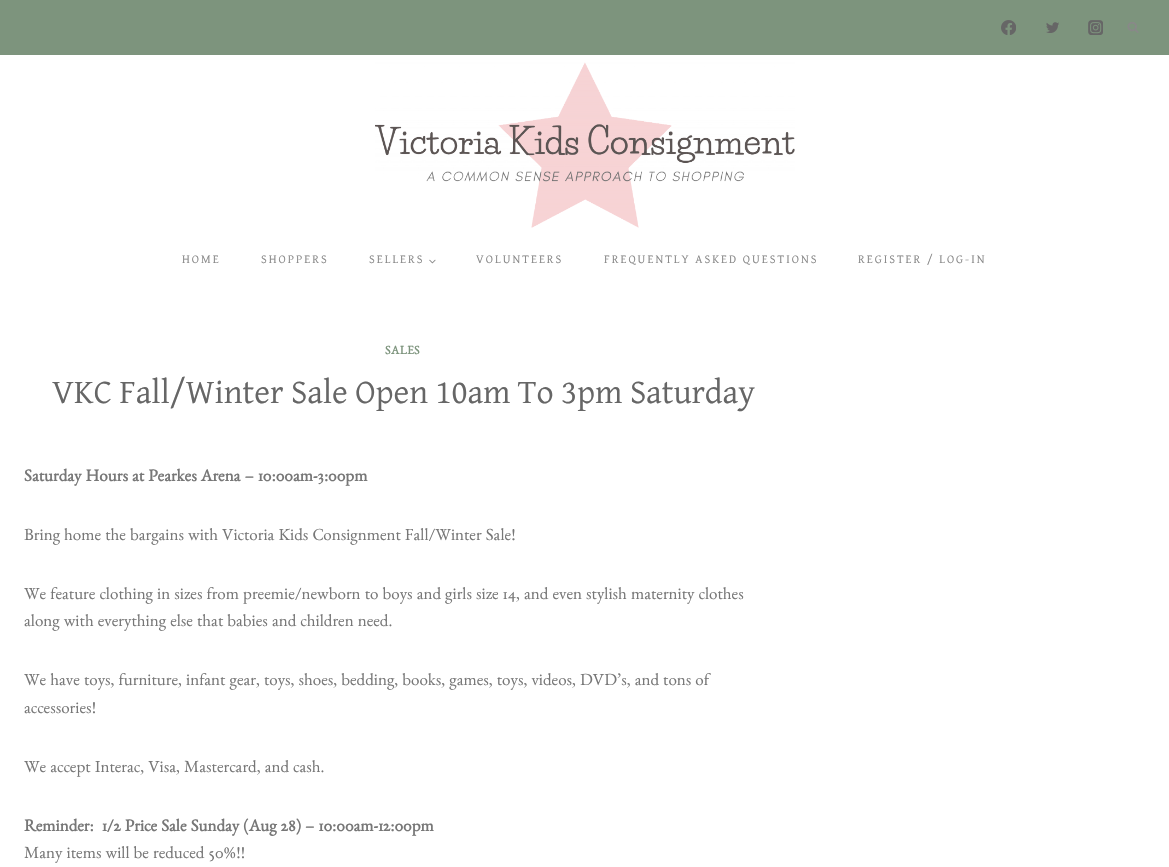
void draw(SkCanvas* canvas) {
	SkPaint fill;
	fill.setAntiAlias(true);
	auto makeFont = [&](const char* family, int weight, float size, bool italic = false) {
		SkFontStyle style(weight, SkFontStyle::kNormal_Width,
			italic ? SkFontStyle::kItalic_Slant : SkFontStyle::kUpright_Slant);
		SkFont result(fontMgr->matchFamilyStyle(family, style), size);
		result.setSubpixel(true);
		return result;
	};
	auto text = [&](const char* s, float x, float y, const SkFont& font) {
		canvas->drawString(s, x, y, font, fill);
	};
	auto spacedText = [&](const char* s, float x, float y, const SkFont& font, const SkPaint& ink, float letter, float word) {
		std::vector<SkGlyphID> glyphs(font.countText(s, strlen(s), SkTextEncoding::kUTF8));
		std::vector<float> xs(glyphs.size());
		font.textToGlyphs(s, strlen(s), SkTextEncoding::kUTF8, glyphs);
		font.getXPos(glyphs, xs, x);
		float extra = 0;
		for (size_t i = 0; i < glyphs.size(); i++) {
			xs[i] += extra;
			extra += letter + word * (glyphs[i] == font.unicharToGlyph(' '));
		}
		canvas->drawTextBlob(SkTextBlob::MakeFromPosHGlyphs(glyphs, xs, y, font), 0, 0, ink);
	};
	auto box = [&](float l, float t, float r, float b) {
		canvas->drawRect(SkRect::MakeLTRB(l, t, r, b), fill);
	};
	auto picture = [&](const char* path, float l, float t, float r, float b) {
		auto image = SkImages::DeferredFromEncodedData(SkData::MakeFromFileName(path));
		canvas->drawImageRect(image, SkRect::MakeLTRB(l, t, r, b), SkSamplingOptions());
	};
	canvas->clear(0xFFFFFFFF);
	fill.setColor(0xFF7D947D);
	box(0, 0, 1169, 55);
	picture("image0.png", 1001, 20, 1016, 35);
	picture("image1.png", 1046, 22, 1059, 33);
	picture("image2.png", 1088, 20, 1103, 35);
	picture("image3.png", 1127, 22, 1139, 33);
	picture("image4.png", 375, 62, 795, 228);
	picture("image5.png", 429, 259, 436, 264);
	auto font1 = makeFont("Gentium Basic", 400, 12);
	fill.setColor(0xFF888888);
	spacedText("HOME", 182, 263, font1, fill, 2, 0);
	spacedText("SHOPPERS", 261, 263, font1, fill, 2, 0);
	spacedText("SELLERS", 369, 263, font1, fill, 2, 0);
	spacedText("VOLUNTEERS", 476, 263, font1, fill, 2, 0);
	spacedText("FREQUENTLY ASKED QUESTIONS", 604, 263, font1, fill, 2, 0);
	spacedText("REGISTER / LOG-IN", 858, 263, font1, fill, 2, 0);
	auto font2 = makeFont("Benne", 700, 12);
	fill.setColor(0xFF7D947D);
	spacedText("SALES", 385, 354, font2, fill, 0.5f, 0);
	auto font3 = makeFont("Gentium Basic", 400, 34);
	fill.setColor(0xFF666666);
	text("VKC Fall/Winter Sale Open 10am To 3pm Saturday", 52, 403, font3);
	auto font4 = makeFont("Benne", 700, 17);
	fill.setColor(0xFF777777);
	text("Saturday Hours at Pearkes Arena – 10:00am-3:00pm", 24, 481, font4);
	auto font5 = makeFont("Benne", 400, 17);
	text("Bring home the bargains with Victoria Kids Consignment Fall/Winter Sale!", 24, 540, font5);
	text("We feature clothing in sizes from preemie/newborn to boys and girls size 14, and even stylish maternity clothes", 24, 599, font5);
	text("along with everything else that babies and children need.", 24, 626, font5);
	text("We have toys, furniture, infant gear, toys, shoes, bedding, books, games, toys, videos, DVD’s, and tons of", 24, 685, font5);
	text("accessories!", 24, 713, font5);
	text("We accept Interac, Visa, Mastercard, and cash.", 24, 772, font5);
	text("Reminder:  1/2 Price Sale Sunday (Aug 28) – 10:00am-12:00pm", 24, 831, font4);
	text("Many items will be reduced 50%!!", 24, 858, font5);
}
